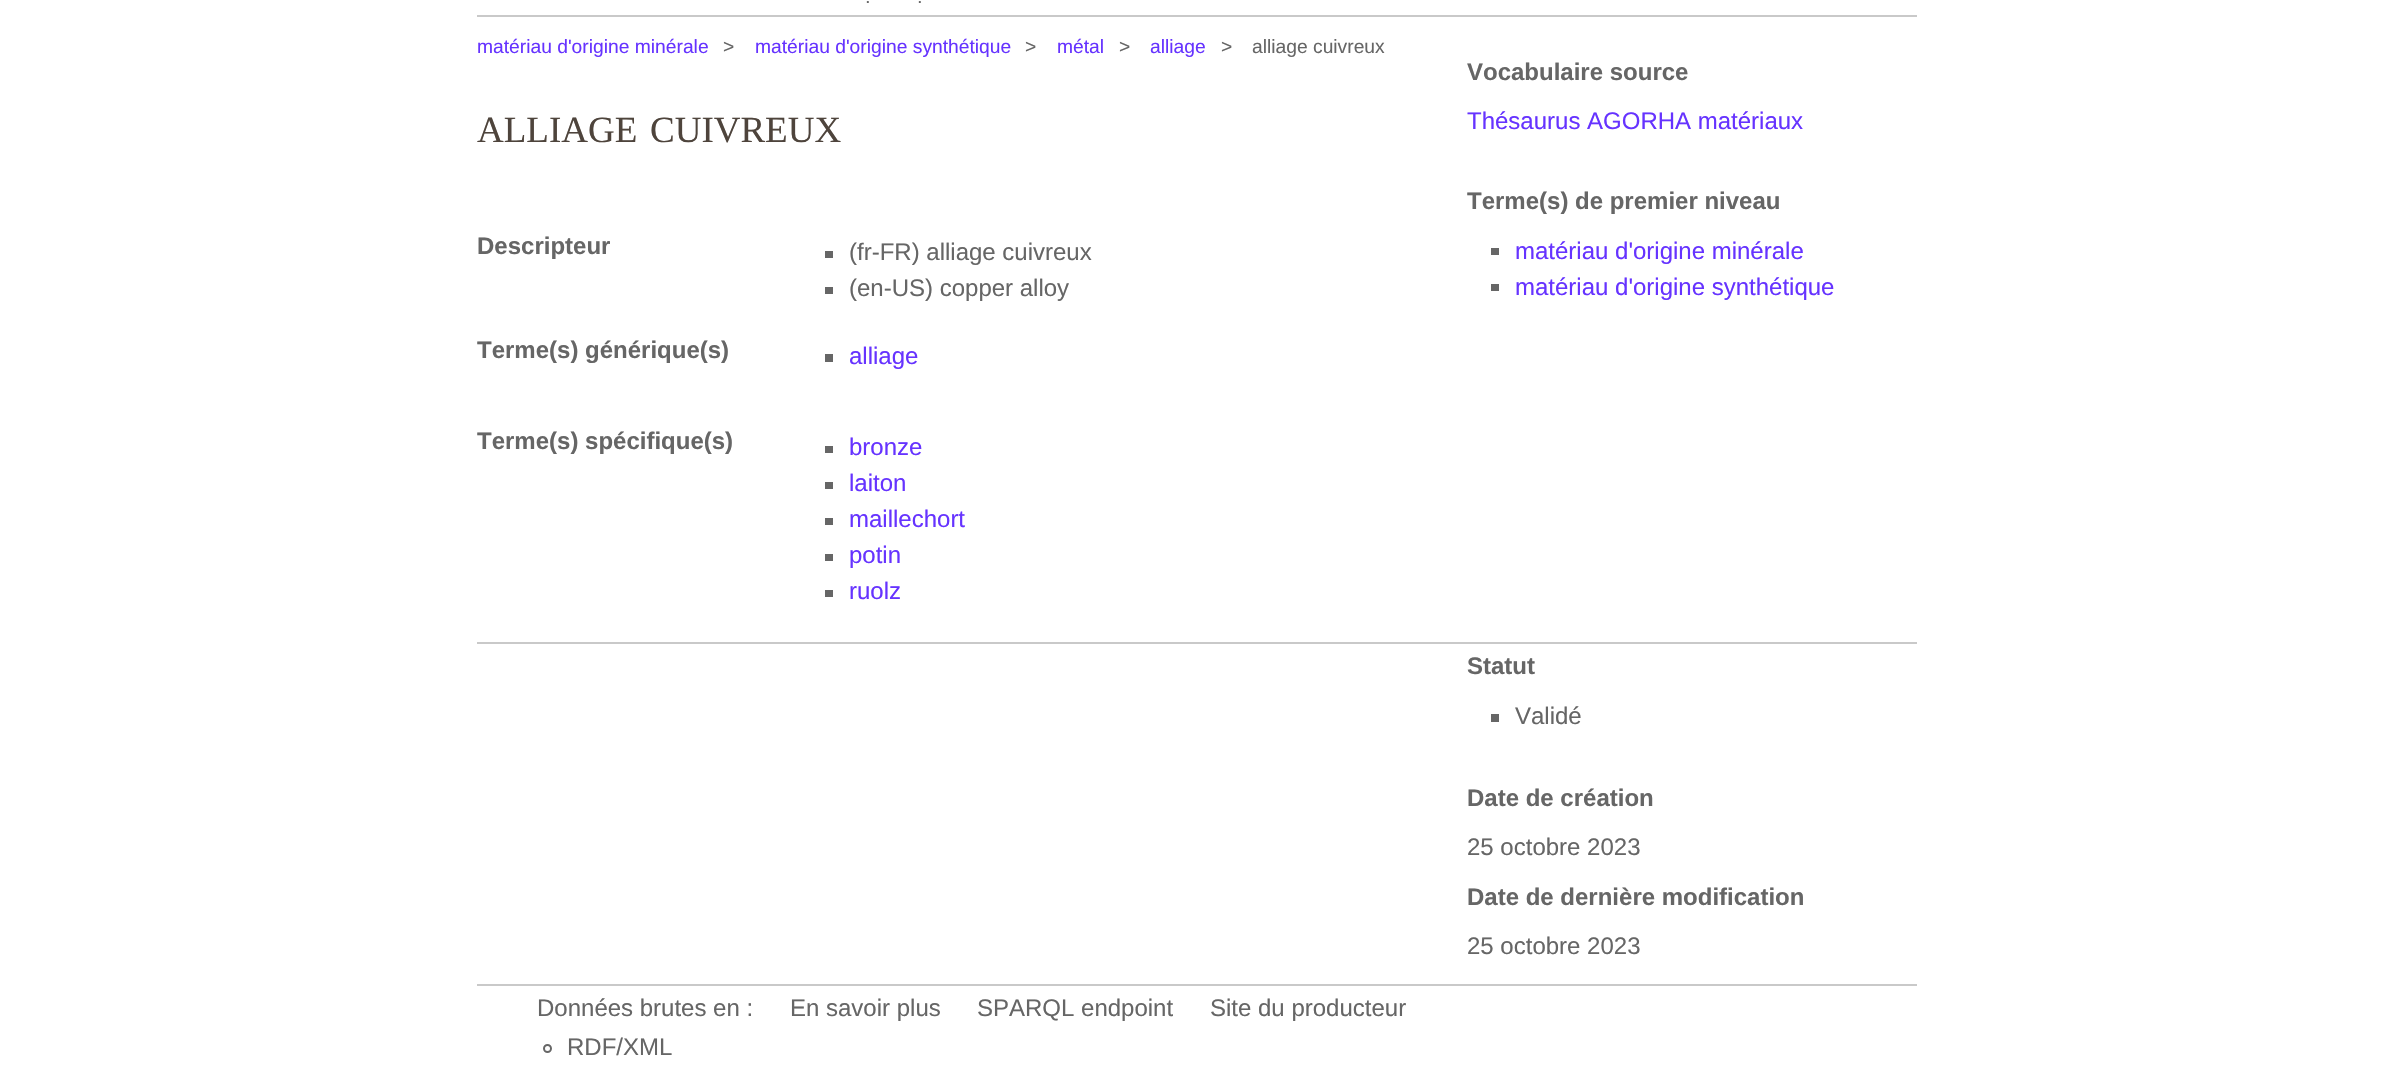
void draw(SkCanvas* canvas) {
	SkPaint fill;
	fill.setAntiAlias(true);
	auto makeFont = [&](const char* family, int weight, float size, bool italic = false) {
		SkFontStyle style(weight, SkFontStyle::kNormal_Width,
			italic ? SkFontStyle::kItalic_Slant : SkFontStyle::kUpright_Slant);
		SkFont result(fontMgr->matchFamilyStyle(family, style), size);
		result.setSubpixel(true);
		return result;
	};
	auto text = [&](const char* s, float x, float y, const SkFont& font) {
		canvas->drawString(s, x, y, font, fill);
	};
	auto spacedText = [&](const char* s, float x, float y, const SkFont& font, const SkPaint& ink, float letter, float word) {
		std::vector<SkGlyphID> glyphs(font.countText(s, strlen(s), SkTextEncoding::kUTF8));
		std::vector<float> xs(glyphs.size());
		font.textToGlyphs(s, strlen(s), SkTextEncoding::kUTF8, glyphs);
		font.getXPos(glyphs, xs, x);
		float extra = 0;
		for (size_t i = 0; i < glyphs.size(); i++) {
			xs[i] += extra;
			extra += letter + word * (glyphs[i] == font.unicharToGlyph(' '));
		}
		canvas->drawTextBlob(SkTextBlob::MakeFromPosHGlyphs(glyphs, xs, y, font), 0, 0, ink);
	};
	auto box = [&](float l, float t, float r, float b) {
		canvas->drawRect(SkRect::MakeLTRB(l, t, r, b), fill);
	};
	canvas->clear(0xFFFFFFFF);
	fill.setColor(0xFFC9C9C9);
	box(477, 15, 1917, 17);
	fill.setColor(0xFF666666);
	box(825, 251, 833, 258);
	box(825, 287, 833, 294);
	box(825, 354, 833, 362);
	box(825, 446, 833, 453);
	box(825, 482, 833, 489);
	box(825, 518, 833, 525);
	box(825, 554, 833, 561);
	box(825, 590, 833, 597);
	box(1491, 248, 1499, 255);
	box(1491, 284, 1499, 291);
	fill.setColor(0xFFC9C9C9);
	box(477, 642, 1917, 644);
	fill.setColor(0xFF666666);
	box(1491, 714, 1499, 722);
	fill.setColor(0xFFC9C9C9);
	box(477, 984, 1917, 986);
	fill.setStyle(SkPaint::kStroke_Style);
	fill.setStrokeWidth(2);
	fill.setColor(0xFF666666);
	canvas->drawCircle(547.5f, 1048.5f, 3.5f, fill);
	auto font1 = makeFont("Liberation Sans", 700, 13);
	fill.setStyle(SkPaint::kFill_Style);
	spacedText(".", 866, 3, font1, fill, 3, 0);
	spacedText(".", 918, 3, font1, fill, 3, 0);
	auto font2 = makeFont("Liberation Sans", 400, 19.25f);
	fill.setColor(0xFF6633FF);
	text("matériau d'origine minérale", 477, 53, font2);
	fill.setColor(0xFF666666);
	text(">", 723, 53, font2);
	fill.setColor(0xFF6633FF);
	text("matériau d'origine synthétique", 755, 53, font2);
	fill.setColor(0xFF666666);
	text(">", 1025, 53, font2);
	fill.setColor(0xFF6633FF);
	text("métal", 1057, 53, font2);
	fill.setColor(0xFF666666);
	text(">", 1119, 53, font2);
	fill.setColor(0xFF6633FF);
	text("alliage", 1150, 53, font2);
	fill.setColor(0xFF666666);
	text(">", 1221, 53, font2);
	text("alliage cuivreux", 1252, 53, font2);
	auto font3 = makeFont("Liberation Serif", 400, 37);
	fill.setColor(0xFF4E443C);
	text("ALLIAGE", 477, 142, font3);
	text("CUIVREUX", 650, 142, font3);
	auto font4 = makeFont("Liberation Sans", 700, 24);
	fill.setColor(0xFF666666);
	text("Descripteur", 477, 254, font4);
	auto font5 = makeFont("Liberation Sans", 400, 24);
	text("(fr-FR) alliage cuivreux", 849, 260, font5);
	text("(en-US) copper alloy", 849, 296, font5);
	text("Terme(s) générique(s)", 477, 358, font4);
	fill.setColor(0xFF6633FF);
	text("alliage", 849, 364, font5);
	fill.setColor(0xFF666666);
	text("Terme(s) spécifique(s)", 477, 449, font4);
	fill.setColor(0xFF6633FF);
	text("bronze", 849, 455, font5);
	text("laiton", 849, 491, font5);
	text("maillechort", 849, 527, font5);
	text("potin", 849, 563, font5);
	text("ruolz", 849, 599, font5);
	fill.setColor(0xFF666666);
	text("Vocabulaire source", 1467, 80, font4);
	fill.setColor(0xFF6633FF);
	text("Thésaurus AGORHA matériaux", 1467, 129, font5);
	fill.setColor(0xFF666666);
	text("Terme(s) de premier niveau", 1467, 209, font4);
	fill.setColor(0xFF6633FF);
	text("matériau d'origine minérale", 1515, 259, font5);
	text("matériau d'origine synthétique", 1515, 295, font5);
	fill.setColor(0xFF666666);
	text("Statut", 1467, 674, font4);
	text("Validé", 1515, 724, font5);
	text("Date de création", 1467, 806, font4);
	text("25 octobre 2023", 1467, 855, font5);
	text("Date de dernière modification", 1467, 905, font4);
	text("25 octobre 2023", 1467, 954, font5);
	text("Données brutes en :", 537, 1016, font5);
	text("RDF/XML", 567, 1055, font5);
	text("En savoir plus", 790, 1016, font5);
	text("SPARQL endpoint", 977, 1016, font5);
	text("Site du producteur", 1210, 1016, font5);
}
